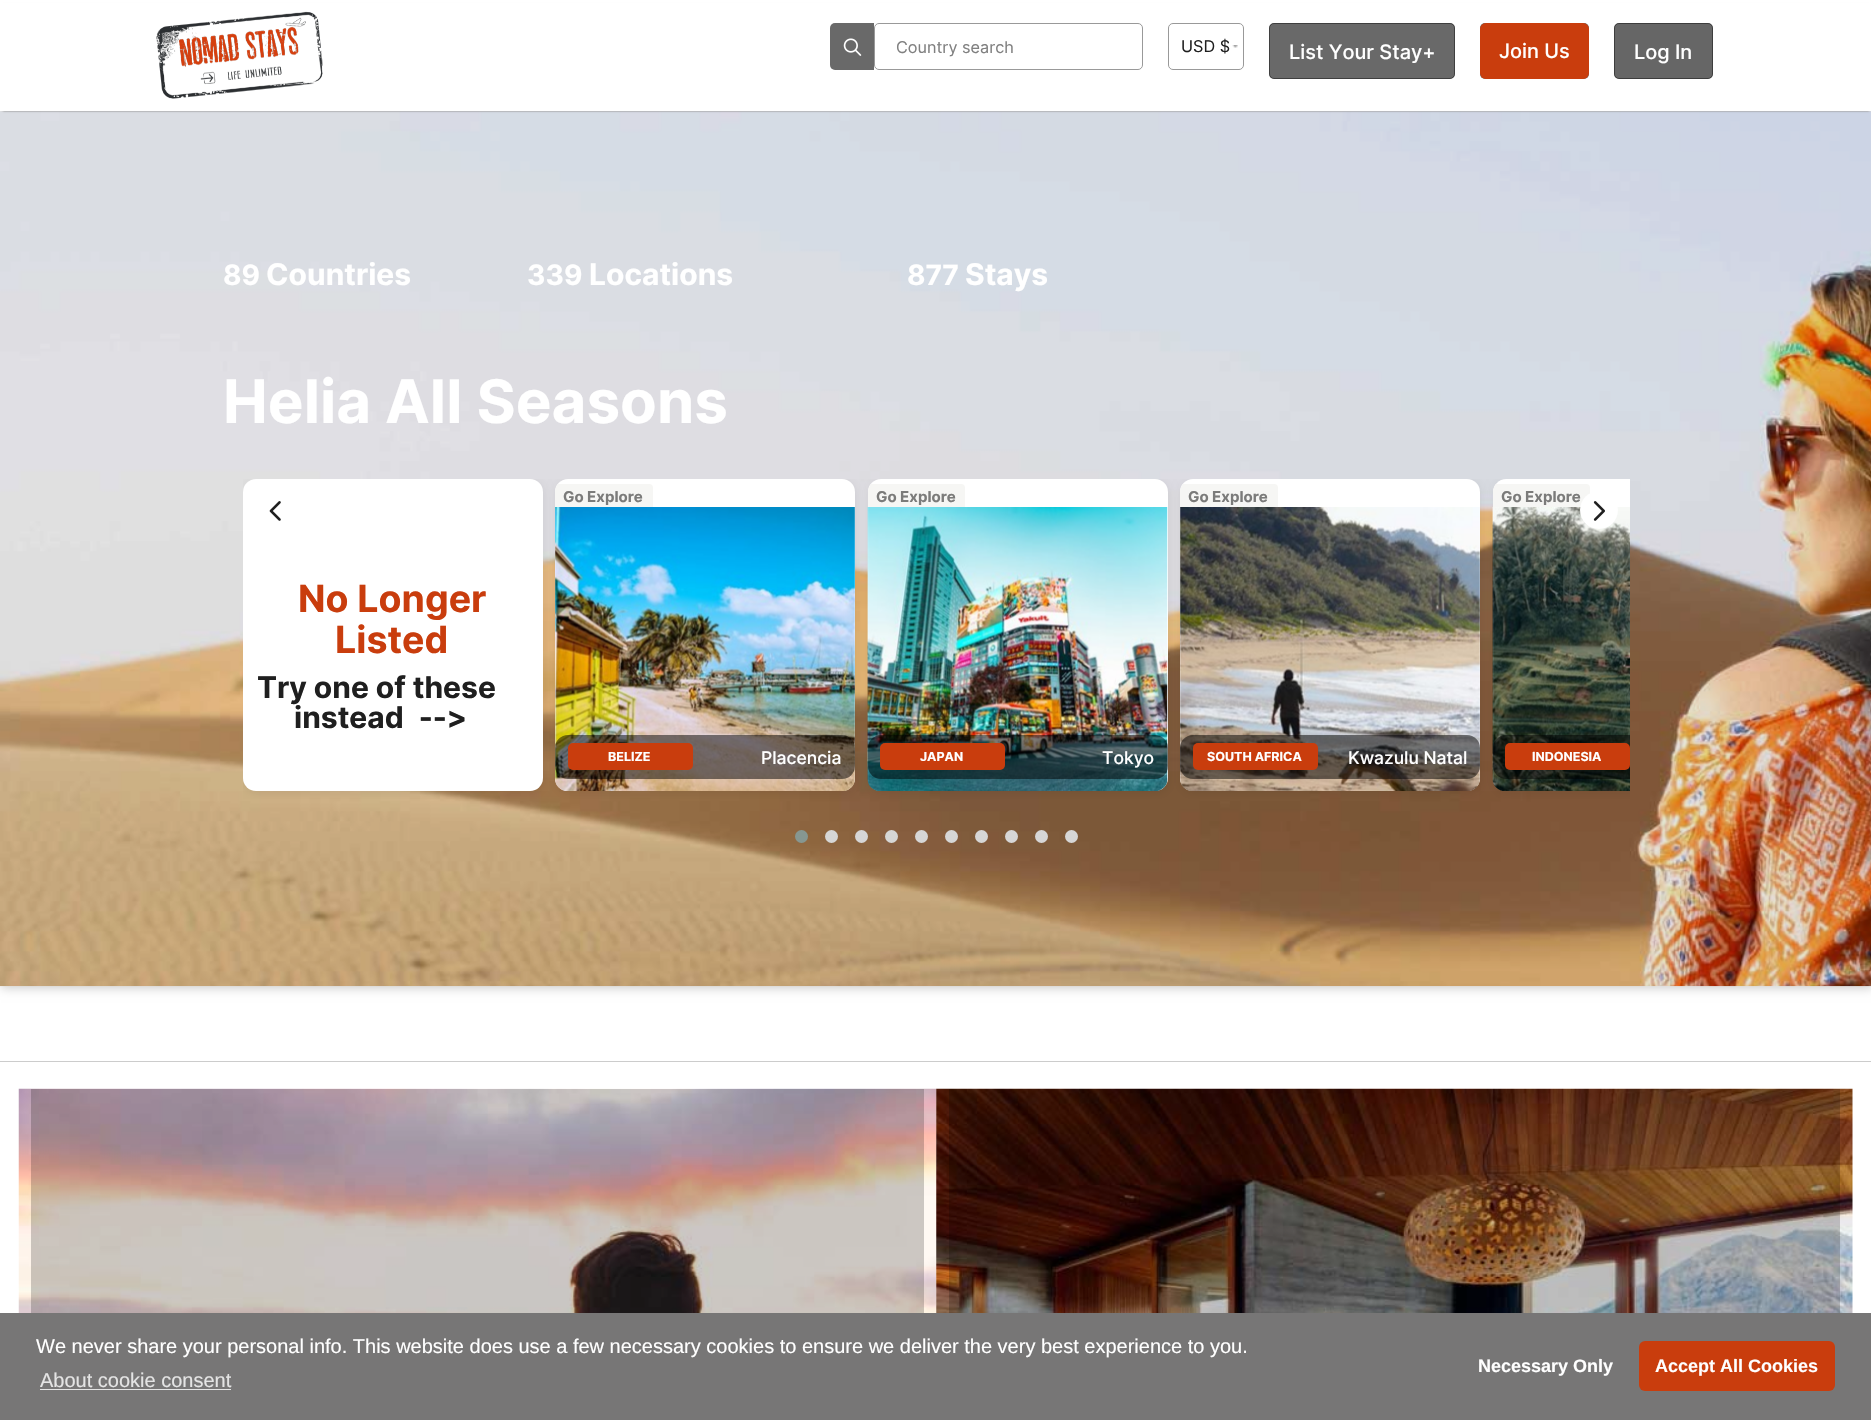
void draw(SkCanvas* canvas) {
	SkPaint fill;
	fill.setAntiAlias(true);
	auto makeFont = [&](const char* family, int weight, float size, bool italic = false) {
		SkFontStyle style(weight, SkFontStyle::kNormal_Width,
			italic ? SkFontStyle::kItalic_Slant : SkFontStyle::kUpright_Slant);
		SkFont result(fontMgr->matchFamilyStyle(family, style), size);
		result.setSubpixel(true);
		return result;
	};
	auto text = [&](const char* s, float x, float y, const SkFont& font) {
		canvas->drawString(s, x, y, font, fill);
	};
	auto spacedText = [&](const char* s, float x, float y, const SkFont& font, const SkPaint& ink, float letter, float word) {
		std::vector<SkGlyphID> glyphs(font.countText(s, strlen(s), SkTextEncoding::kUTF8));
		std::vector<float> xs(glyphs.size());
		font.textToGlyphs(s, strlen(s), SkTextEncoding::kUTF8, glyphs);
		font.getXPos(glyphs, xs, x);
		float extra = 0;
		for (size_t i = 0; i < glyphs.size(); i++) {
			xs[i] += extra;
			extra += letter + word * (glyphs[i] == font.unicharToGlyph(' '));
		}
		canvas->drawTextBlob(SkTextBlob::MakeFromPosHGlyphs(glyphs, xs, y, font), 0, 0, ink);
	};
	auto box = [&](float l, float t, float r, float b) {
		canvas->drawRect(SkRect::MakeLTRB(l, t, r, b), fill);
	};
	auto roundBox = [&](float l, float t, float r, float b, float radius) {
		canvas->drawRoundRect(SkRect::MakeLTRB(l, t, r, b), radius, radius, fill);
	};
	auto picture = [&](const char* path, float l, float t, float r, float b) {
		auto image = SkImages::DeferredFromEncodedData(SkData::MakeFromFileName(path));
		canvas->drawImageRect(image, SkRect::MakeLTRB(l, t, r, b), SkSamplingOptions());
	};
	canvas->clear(0xFFFFFFFF);
	fill.setColor(0x33000000);
	fill.setMaskFilter(SkMaskFilter::MakeBlur(kNormal_SkBlurStyle, 5));
	canvas->drawRect(SkRect::MakeLTRB(1, 113, 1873, 988), fill);
	fill.setMaskFilter(nullptr);
	picture("image3.png", 0, 111, 1871, 987);
	fill.setColor(0x1A000000);
	box(0, 111, 1871, 986);
	fill.setColor(0xFF808080);
	fill.setMaskFilter(SkMaskFilter::MakeBlur(kNormal_SkBlurStyle, 1));
	canvas->drawRect(SkRect::MakeLTRB(3, 5, 1869, 111), fill);
	fill.setMaskFilter(nullptr);
	fill.setColor(0xFFFFFFFF);
	box(0, 3, 1871, 111);
	picture("image0.png", 156, 11, 323, 99);
	fill.setColor(0xFF696969);
	roundBox(830, 23, 1143, 70, 5);
	fill.setColor(0xFFFFFFFF);
	box(874, 23, 1143, 70);
	fill.setStyle(SkPaint::kStroke_Style);
	fill.setStrokeWidth(1);
	fill.setColor(0xFF999999);
	canvas->drawRoundRect(SkRect::MakeLTRB(874.5f, 23.5f, 1142.5f, 69.5f), 4.5f, 4.5f, fill);
	picture("image1.png", 843, 38, 862, 56);
	picture("image2.png", 1232, 45, 1238, 48);
	canvas->drawRoundRect(SkRect::MakeLTRB(1168.5f, 23.5f, 1243.5f, 69.5f), 4.5f, 4.5f, fill);
	fill.setStyle(SkPaint::kFill_Style);
	fill.setColor(0xFF696969);
	roundBox(1269, 23, 1455, 79, 5);
	fill.setStyle(SkPaint::kStroke_Style);
	fill.setColor(0x66000000);
	canvas->drawRoundRect(SkRect::MakeLTRB(1269.5f, 23.5f, 1454.5f, 78.5f), 4.5f, 4.5f, fill);
	fill.setStyle(SkPaint::kFill_Style);
	fill.setColor(0xFF696969);
	roundBox(1480, 23, 1589, 79, 5);
	fill.setColor(0xFFC93D0D);
	roundBox(1480, 23, 1589, 79, 6);
	fill.setColor(0xFF666666);
	roundBox(1614, 23, 1713, 79, 5);
	fill.setStyle(SkPaint::kStroke_Style);
	fill.setColor(0x66000000);
	canvas->drawRoundRect(SkRect::MakeLTRB(1614.5f, 23.5f, 1712.5f, 78.5f), 4.5f, 4.5f, fill);
	canvas->save();
	canvas->clipRect(SkRect::MakeLTRB(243, 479, 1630, 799));
	fill.setStyle(SkPaint::kFill_Style);
	fill.setColor(0x12000000);
	fill.setMaskFilter(SkMaskFilter::MakeBlur(kNormal_SkBlurStyle, 5));
	canvas->drawRoundRect(SkRect::MakeLTRB(244, 480, 544, 793), 13, 13, fill);
	fill.setMaskFilter(nullptr);
	canvas->restore();
	fill.setColor(0xFFFFFFFF);
	roundBox(243, 479, 543, 791, 13);
	canvas->save();
	canvas->clipRect(SkRect::MakeLTRB(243, 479, 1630, 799));
	fill.setColor(0x12000000);
	fill.setMaskFilter(SkMaskFilter::MakeBlur(kNormal_SkBlurStyle, 5));
	canvas->drawRoundRect(SkRect::MakeLTRB(556, 480, 856, 793), 13, 13, fill);
	fill.setMaskFilter(nullptr);
	canvas->restore();
	fill.setColor(0xFFFFFFFF);
	roundBox(555, 479, 855, 791, 13);
	canvas->save();
	canvas->clipPath(SkPathBuilder().moveTo(568, 479).lineTo(842, 479).cubicTo(849, 479, 855, 485, 855, 492).lineTo(855, 778).cubicTo(855, 785, 849, 791, 842, 791).lineTo(568, 791).cubicTo(561, 791, 555, 785, 555, 778).lineTo(555, 492).cubicTo(555, 485, 561, 479, 568, 479).close().detach(), true);
	fill.setColor(0xFFF6F6F4);
	roundBox(555, 484, 653, 510, 4);
	canvas->restore();
	picture("image4.png", 555, 507, 855, 791);
	fill.setColor(0x80000000);
	roundBox(555, 735, 855, 779, 13);
	fill.setColor(0xFFC93D0D);
	roundBox(568, 743, 693, 770, 5);
	canvas->save();
	canvas->clipRect(SkRect::MakeLTRB(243, 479, 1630, 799));
	fill.setColor(0x12000000);
	fill.setMaskFilter(SkMaskFilter::MakeBlur(kNormal_SkBlurStyle, 5));
	canvas->drawRoundRect(SkRect::MakeLTRB(869, 480, 1169, 793), 13, 13, fill);
	fill.setMaskFilter(nullptr);
	canvas->restore();
	fill.setColor(0xFFFFFFFF);
	roundBox(868, 479, 1168, 791, 13);
	canvas->save();
	canvas->clipPath(SkPathBuilder().moveTo(881, 479).lineTo(1155, 479).cubicTo(1162, 479, 1168, 485, 1168, 492).lineTo(1168, 778).cubicTo(1168, 785, 1162, 791, 1155, 791).lineTo(881, 791).cubicTo(874, 791, 868, 785, 868, 778).lineTo(868, 492).cubicTo(868, 485, 874, 479, 881, 479).close().detach(), true);
	fill.setColor(0xFFF6F6F4);
	roundBox(868, 484, 965, 510, 4);
	canvas->restore();
	picture("image5.png", 867, 507, 1168, 791);
	fill.setColor(0x80000000);
	roundBox(868, 735, 1168, 779, 13);
	fill.setColor(0xFFC93D0D);
	roundBox(880, 743, 1005, 770, 5);
	canvas->save();
	canvas->clipRect(SkRect::MakeLTRB(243, 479, 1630, 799));
	fill.setColor(0x12000000);
	fill.setMaskFilter(SkMaskFilter::MakeBlur(kNormal_SkBlurStyle, 5));
	canvas->drawRoundRect(SkRect::MakeLTRB(1181, 480, 1481, 793), 13, 13, fill);
	fill.setMaskFilter(nullptr);
	canvas->restore();
	fill.setColor(0xFFFFFFFF);
	roundBox(1180, 479, 1480, 791, 13);
	canvas->save();
	canvas->clipPath(SkPathBuilder().moveTo(1193, 479).lineTo(1467, 479).cubicTo(1474, 479, 1480, 485, 1480, 492).lineTo(1480, 778).cubicTo(1480, 785, 1474, 791, 1467, 791).lineTo(1193, 791).cubicTo(1186, 791, 1180, 785, 1180, 778).lineTo(1180, 492).cubicTo(1180, 485, 1186, 479, 1193, 479).close().detach(), true);
	fill.setColor(0xFFF6F6F4);
	roundBox(1180, 484, 1278, 510, 4);
	canvas->restore();
	picture("image6.png", 1180, 507, 1480, 791);
	fill.setColor(0x80000000);
	roundBox(1180, 735, 1480, 779, 13);
	fill.setColor(0xFFC93D0D);
	roundBox(1193, 743, 1318, 770, 5);
	canvas->save();
	canvas->clipRect(SkRect::MakeLTRB(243, 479, 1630, 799));
	fill.setColor(0x12000000);
	fill.setMaskFilter(SkMaskFilter::MakeBlur(kNormal_SkBlurStyle, 5));
	canvas->drawRoundRect(SkRect::MakeLTRB(1494, 480, 1794, 793), 13, 13, fill);
	fill.setMaskFilter(nullptr);
	canvas->restore();
	fill.setColor(0xFFFFFFFF);
	canvas->drawPath(SkPathBuilder().moveTo(1506, 479).lineTo(1630, 479).lineTo(1630, 791).lineTo(1506, 791).cubicTo(1499, 791, 1493, 785, 1493, 778).lineTo(1493, 492).cubicTo(1493, 485, 1499, 479, 1506, 479).close().detach(), fill);
	canvas->save();
	canvas->clipPath(SkPathBuilder().moveTo(1506, 479).lineTo(1780, 479).cubicTo(1787, 479, 1793, 485, 1793, 492).lineTo(1793, 778).cubicTo(1793, 785, 1787, 791, 1780, 791).lineTo(1506, 791).cubicTo(1499, 791, 1493, 785, 1493, 778).lineTo(1493, 492).cubicTo(1493, 485, 1499, 479, 1506, 479).close().detach(), true);
	fill.setColor(0xFFF6F6F4);
	roundBox(1493, 484, 1590, 510, 4);
	canvas->restore();
	picture("image7.png", 1492, 507, 1630, 791);
	fill.setColor(0x80000000);
	canvas->drawPath(SkPathBuilder().moveTo(1506, 735).lineTo(1630, 735).lineTo(1630, 779).lineTo(1506, 779).cubicTo(1499, 779, 1493, 773, 1493, 766).lineTo(1493, 748).cubicTo(1493, 741, 1499, 735, 1506, 735).close().detach(), fill);
	fill.setColor(0xFFC93D0D);
	roundBox(1505, 743, 1630, 770, 5);
	picture("image8.png", 269, 501, 281, 521);
	fill.setColor(0xFF869791);
	canvas->drawCircle(801.5f, 836.5f, 6.5f, fill);
	fill.setColor(0xFFD6D6D6);
	canvas->drawCircle(831.5f, 836.5f, 6.5f, fill);
	canvas->drawCircle(861.5f, 836.5f, 6.5f, fill);
	canvas->drawCircle(891.5f, 836.5f, 6.5f, fill);
	canvas->drawCircle(921.5f, 836.5f, 6.5f, fill);
	canvas->drawCircle(951.5f, 836.5f, 6.5f, fill);
	canvas->drawCircle(981.5f, 836.5f, 6.5f, fill);
	canvas->drawCircle(1011.5f, 836.5f, 6.5f, fill);
	canvas->drawCircle(1041.5f, 836.5f, 6.5f, fill);
	canvas->drawCircle(1071.5f, 836.5f, 6.5f, fill);
	fill.setColor(0xFFCCCCCC);
	box(0, 1061, 1871, 1062);
	picture("image10.png", 18, 1088, 937, 1313);
	picture("image11.png", 936, 1088, 1853, 1313);
	fill.setColor(0xFF777676);
	box(0, 1313, 1871, 1420);
	fill.setColor(0xFFE4E4E4);
	box(40, 1389, 231, 1390);
	fill.setColor(0xFFC93D0D);
	roundBox(1639, 1341, 1835, 1391, 6);
	auto font1 = makeFont("Inter", 400, 16.25f);
	fill.setColor(0xFF808080);
	text("Country search", 896, 53, font1);
	fill.setColor(0xFF1F1F1F);
	text("USD $", 1181, 52, font1);
	auto font2 = makeFont("Inter", 500, 20);
	fill.setColor(0xFFFFFFFF);
	text("List Your Stay+", 1289, 59, font2);
	text("Join Us", 1499, 58, font2);
	text("Log In", 1634, 59, font2);
	auto font3 = makeFont("Inter", 700, 28);
	text("89", 223, 285, font3);
	auto font4 = makeFont("Inter", 700, 30);
	text("Countries", 266, 285, font4);
	text("339", 527, 285, font3);
	text("Locations", 589, 285, font4);
	text("877", 907, 285, font3);
	text("Stays", 965, 285, font4);
	auto font5 = makeFont("Inter", 700, 60);
	text("Helia All Seasons", 223, 423, font5);
	auto font6 = makeFont("Inter", 700, 37.5f);
	fill.setColor(0xFFC93D0D);
	text("No Longer", 298, 612, font6);
	text("Listed", 335, 653, font6);
	fill.setColor(0xFF1F1F1F);
	text("Try one of these", 257, 698, font4);
	spacedText("instead -->", 294, 728, font4, fill, 0, 8);
	auto font7 = makeFont("Inter", 700, 15);
	fill.setColor(0xFF7B7B7A);
	text("Go Explore", 563, 502, font7);
	auto font8 = makeFont("Inter", 700, 12.5f);
	fill.setColor(0xFFFFFFFF);
	text("BELIZE", 608, 761, font8);
	auto font9 = makeFont("Inter", 500, 17.5f);
	text("Placencia", 761, 764, font9);
	fill.setColor(0xFF7B7B7A);
	text("Go Explore", 876, 502, font7);
	fill.setColor(0xFFFFFFFF);
	text("JAPAN", 920, 761, font8);
	text("Tokyo", 1102, 764, font9);
	fill.setColor(0xFF7B7B7A);
	text("Go Explore", 1188, 502, font7);
	fill.setColor(0xFFFFFFFF);
	text("SOUTH AFRICA", 1207, 761, font8);
	text("Kwazulu Natal", 1348, 764, font9);
	fill.setColor(0xFF7B7B7A);
	text("Go Explore", 1501, 502, font7);
	fill.setColor(0xFFFFFFFF);
	text("INDONESIA", 1532, 761, font8);
	canvas->drawCircle(1599, 510, 19, fill);
	picture("image9.png", 1593, 501, 1605, 521);
	auto font10 = makeFont("Liberation Sans", 400, 20);
	text("We never share your personal info. This website does use a few necessary cookies to ensure we deliver the very best experience to you.", 36, 1353, font10);
	fill.setColor(0xFFE4E4E4);
	text("About cookie consent", 40, 1387, font10);
	auto font11 = makeFont("Liberation Sans", 700, 18);
	fill.setColor(0xFFFFFFFF);
	text("Necessary Only", 1478, 1372, font11);
	text("Accept All Cookies", 1655, 1372, font11);
}
